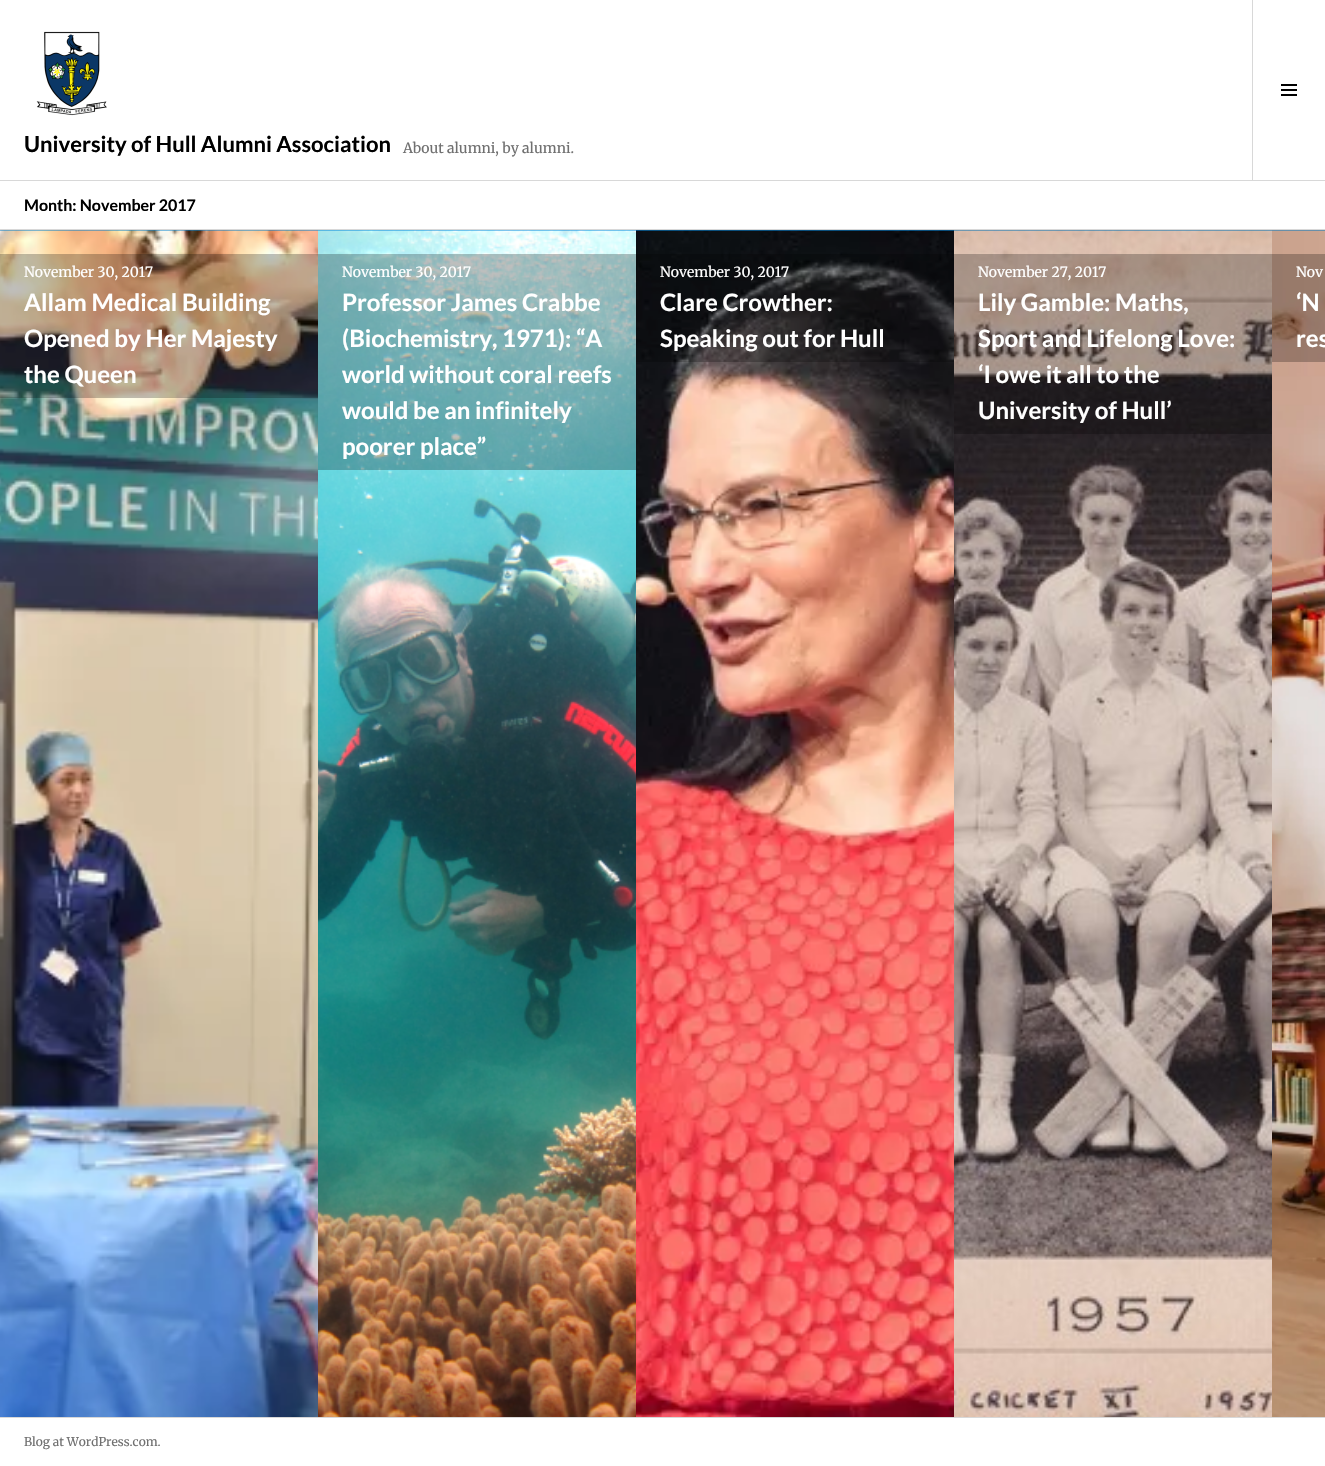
void draw(SkCanvas* canvas) {
	SkPaint fill;
	fill.setAntiAlias(true);
	auto makeFont = [&](const char* family, int weight, float size, bool italic = false) {
		SkFontStyle style(weight, SkFontStyle::kNormal_Width,
			italic ? SkFontStyle::kItalic_Slant : SkFontStyle::kUpright_Slant);
		SkFont result(fontMgr->matchFamilyStyle(family, style), size);
		result.setSubpixel(true);
		return result;
	};
	auto text = [&](const char* s, float x, float y, const SkFont& font) {
		canvas->drawString(s, x, y, font, fill);
	};
	auto box = [&](float l, float t, float r, float b) {
		canvas->drawRect(SkRect::MakeLTRB(l, t, r, b), fill);
	};
	auto picture = [&](const char* path, float l, float t, float r, float b) {
		auto image = SkImages::DeferredFromEncodedData(SkData::MakeFromFileName(path));
		canvas->drawImageRect(image, SkRect::MakeLTRB(l, t, r, b), SkSamplingOptions());
	};
	canvas->clear(0xFFFFFFFF);
	fill.setColor(0xFFD8D8D8);
	box(0, 180, 1325, 181);
	picture("image0.png", 36, 31, 107, 116);
	box(1252, 0, 1253, 180);
	picture("image1.png", 1281, 84, 1297, 96);
	box(0, 229, 1325, 230);
	fill.setColor(0xFF0682CF);
	box(0, 230, 318, 231);
	picture("image2.png", 0, 230, 318, 1417);
	fill.setColor(0x40000000);
	box(0, 254, 318, 398);
	fill.setColor(0xFF068ADC);
	box(318, 230, 636, 231);
	picture("image3.png", 318, 230, 636, 1417);
	fill.setColor(0x40000000);
	box(318, 254, 636, 470);
	fill.setColor(0xFF0790E8);
	box(636, 230, 954, 231);
	picture("image4.png", 636, 230, 954, 1417);
	fill.setColor(0x40000000);
	box(636, 254, 954, 362);
	fill.setColor(0xFF0573B7);
	box(954, 230, 1272, 231);
	picture("image5.png", 954, 230, 1272, 1417);
	fill.setColor(0x40000000);
	box(954, 254, 1272, 434);
	fill.setColor(0xFF067AC3);
	box(1272, 230, 1325, 231);
	picture("image6.png", 1272, 230, 1325, 1417);
	fill.setColor(0x40000000);
	box(1272, 254, 1325, 362);
	fill.setColor(0xFFD8D8D8);
	box(0, 1417, 1325, 1418);
	auto font1 = makeFont("Lato", 700, 22);
	fill.setColor(0xFF000000);
	text("University of Hull Alumni Association", 24, 152, font1);
	auto font2 = makeFont("Merriweather", 400, 14);
	fill.setColor(0xFF707070);
	text("About alumni, by alumni.", 403, 153, font2);
	auto font3 = makeFont("Lato", 700, 16);
	fill.setColor(0xFF000000);
	text("Month: November 2017", 24, 211, font3);
	fill.setColor(0xFFFFFFFF);
	text("November 30, 2017", 24, 277, font2);
	auto font4 = makeFont("Lato", 700, 24);
	text("Allam Medical Building", 24, 311, font4);
	text("Opened by Her Majesty", 24, 347, font4);
	text("the Queen", 24, 383, font4);
	text("November 30, 2017", 342, 277, font2);
	text("Professor James Crabbe", 342, 311, font4);
	text("(Biochemistry, 1971): “A", 342, 347, font4);
	text("world without coral reefs", 342, 383, font4);
	text("would be an infinitely", 342, 419, font4);
	text("poorer place”", 342, 455, font4);
	text("November 30, 2017", 660, 277, font2);
	text("Clare Crowther:", 660, 311, font4);
	text("Speaking out for Hull", 660, 347, font4);
	text("November 27, 2017", 978, 277, font2);
	text("Lily Gamble: Maths,", 978, 311, font4);
	text("Sport and Lifelong Love:", 978, 347, font4);
	text("‘I owe it all to the", 978, 383, font4);
	text("University of Hull’", 978, 419, font4);
	text("Nov", 1296, 277, font2);
	text("‘N", 1296, 311, font4);
	text("res", 1296, 347, font4);
	auto font5 = makeFont("Merriweather", 400, 12);
	fill.setColor(0xFF707070);
	text("Blog at WordPress.com.", 24, 1446, font5);
}
